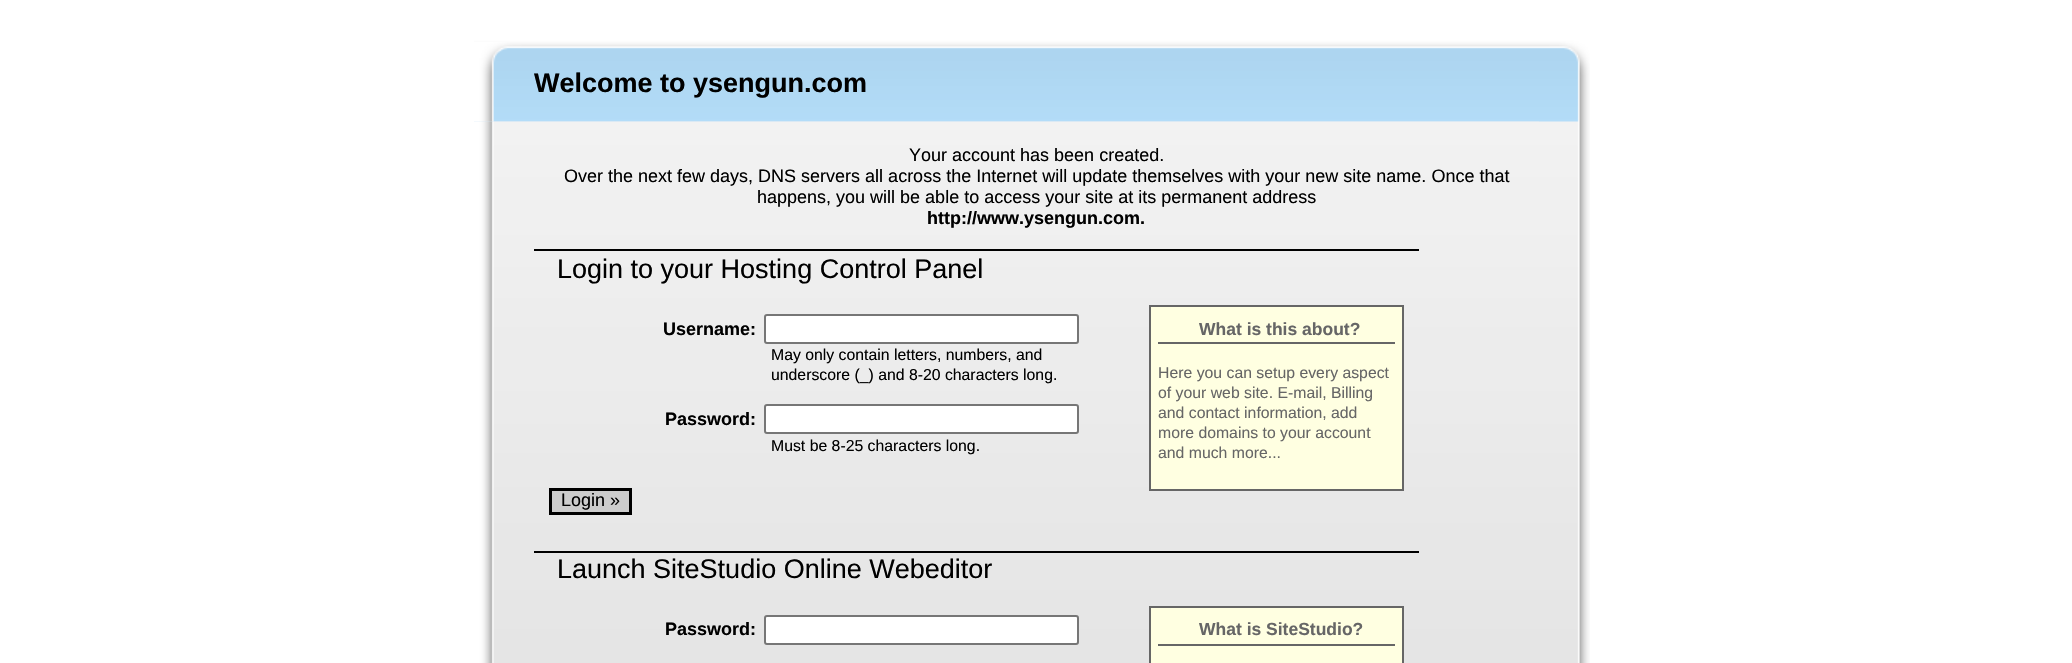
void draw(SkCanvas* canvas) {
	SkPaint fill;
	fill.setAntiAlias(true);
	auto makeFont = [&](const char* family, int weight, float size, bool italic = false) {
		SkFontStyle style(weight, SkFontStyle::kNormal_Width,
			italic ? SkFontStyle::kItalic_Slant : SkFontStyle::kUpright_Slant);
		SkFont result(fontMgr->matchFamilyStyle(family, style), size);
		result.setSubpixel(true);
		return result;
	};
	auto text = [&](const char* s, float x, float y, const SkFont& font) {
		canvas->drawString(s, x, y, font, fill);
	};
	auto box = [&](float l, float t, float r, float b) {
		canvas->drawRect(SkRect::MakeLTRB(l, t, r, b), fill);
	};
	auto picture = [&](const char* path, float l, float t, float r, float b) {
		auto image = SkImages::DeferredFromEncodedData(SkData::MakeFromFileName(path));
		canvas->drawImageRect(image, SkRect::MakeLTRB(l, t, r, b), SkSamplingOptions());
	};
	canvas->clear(0xFFFFFFFF);
	picture("image0.png", 474, 121, 1590, 663);
	picture("image1.png", 474, 30, 1590, 122);
	picture("image2.png", 474, 42, 1539, 122);
	picture("image3.png", 474, 121, 1539, 663);
	fill.setColor(0xFF000000);
	box(534, 249, 1419, 251);
	fill.setColor(0xFFFFFFFF);
	canvas->drawRoundRect(SkRect::MakeLTRB(765, 315, 1078, 343), 2, 2, fill);
	fill.setStyle(SkPaint::kStroke_Style);
	fill.setStrokeWidth(2);
	fill.setColor(0xFF767676);
	canvas->drawRoundRect(SkRect::MakeLTRB(765, 315, 1078, 343), 2, 2, fill);
	fill.setStyle(SkPaint::kFill_Style);
	fill.setColor(0xFFFFFFE1);
	canvas->drawRect(SkRect::MakeLTRB(1150, 306, 1403, 490), fill);
	fill.setStyle(SkPaint::kStroke_Style);
	fill.setColor(0xFF666666);
	canvas->drawRect(SkRect::MakeLTRB(1150, 306, 1403, 490), fill);
	fill.setStyle(SkPaint::kFill_Style);
	box(1158, 342, 1395, 344);
	fill.setColor(0xFFFFFFFF);
	canvas->drawRoundRect(SkRect::MakeLTRB(765, 405, 1078, 433), 2, 2, fill);
	fill.setStyle(SkPaint::kStroke_Style);
	fill.setColor(0xFF767676);
	canvas->drawRoundRect(SkRect::MakeLTRB(765, 405, 1078, 433), 2, 2, fill);
	fill.setStyle(SkPaint::kFill_Style);
	fill.setColor(0xFFCCCCCC);
	canvas->drawRect(SkRect::MakeLTRB(550.5f, 489.5f, 630.5f, 513.5f), fill);
	fill.setStyle(SkPaint::kStroke_Style);
	fill.setStrokeWidth(3);
	fill.setColor(0xFF000000);
	canvas->drawRect(SkRect::MakeLTRB(550.5f, 489.5f, 630.5f, 513.5f), fill);
	fill.setStyle(SkPaint::kFill_Style);
	box(534, 551, 1419, 553);
	fill.setColor(0xFFFFFFFF);
	canvas->drawRoundRect(SkRect::MakeLTRB(765, 616, 1078, 644), 2, 2, fill);
	fill.setStyle(SkPaint::kStroke_Style);
	fill.setStrokeWidth(2);
	fill.setColor(0xFF767676);
	canvas->drawRoundRect(SkRect::MakeLTRB(765, 616, 1078, 644), 2, 2, fill);
	fill.setStyle(SkPaint::kFill_Style);
	fill.setColor(0xFFFFFFE1);
	canvas->drawRect(SkRect::MakeLTRB(1150, 607, 1403, 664), fill);
	fill.setStyle(SkPaint::kStroke_Style);
	fill.setColor(0xFF666666);
	canvas->drawRect(SkRect::MakeLTRB(1150, 607, 1403, 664), fill);
	fill.setStyle(SkPaint::kFill_Style);
	box(1158, 644, 1395, 646);
	auto font1 = makeFont("Liberation Sans", 700, 27);
	fill.setColor(0xFF000000);
	text("Welcome to ysengun.com", 534, 92, font1);
	auto font2 = makeFont("Liberation Sans", 400, 18);
	text("Your account has been created.", 909, 161, font2);
	text("Over the next few days, DNS servers all across the Internet will update themselves with your new site name. Once that", 564, 182, font2);
	text("happens, you will be able to access your site at its permanent address", 757, 203, font2);
	auto font3 = makeFont("Liberation Sans", 700, 18);
	text("http://www.ysengun.com.", 927, 224, font3);
	auto font4 = makeFont("Liberation Sans", 400, 27);
	text("Login to your Hosting Control Panel", 557, 278, font4);
	text("Username:", 663, 335, font3);
	auto font5 = makeFont("Liberation Sans", 400, 15.8f);
	text("May only contain letters, numbers, and", 771, 360, font5);
	text("underscore (_) and 8-20 characters long.", 771, 380, font5);
	auto font6 = makeFont("Liberation Sans", 700, 17.5f);
	fill.setColor(0xFF666666);
	text("What is this about?", 1199, 335, font6);
	text("Here you can setup every aspect", 1158, 378, font5);
	text("of your web site. E-mail, Billing", 1158, 398, font5);
	text("and contact information, add", 1158, 418, font5);
	text("more domains to your account", 1158, 438, font5);
	text("and much more...", 1158, 458, font5);
	fill.setColor(0xFF000000);
	text("Password:", 665, 425, font3);
	text("Must be 8-25 characters long.", 771, 451, font5);
	text("Login »", 561, 506, font2);
	text("Launch SiteStudio Online Webeditor", 557, 578, font4);
	text("Password:", 665, 635, font3);
	fill.setColor(0xFF666666);
	text("What is SiteStudio?", 1199, 635, font6);
}
